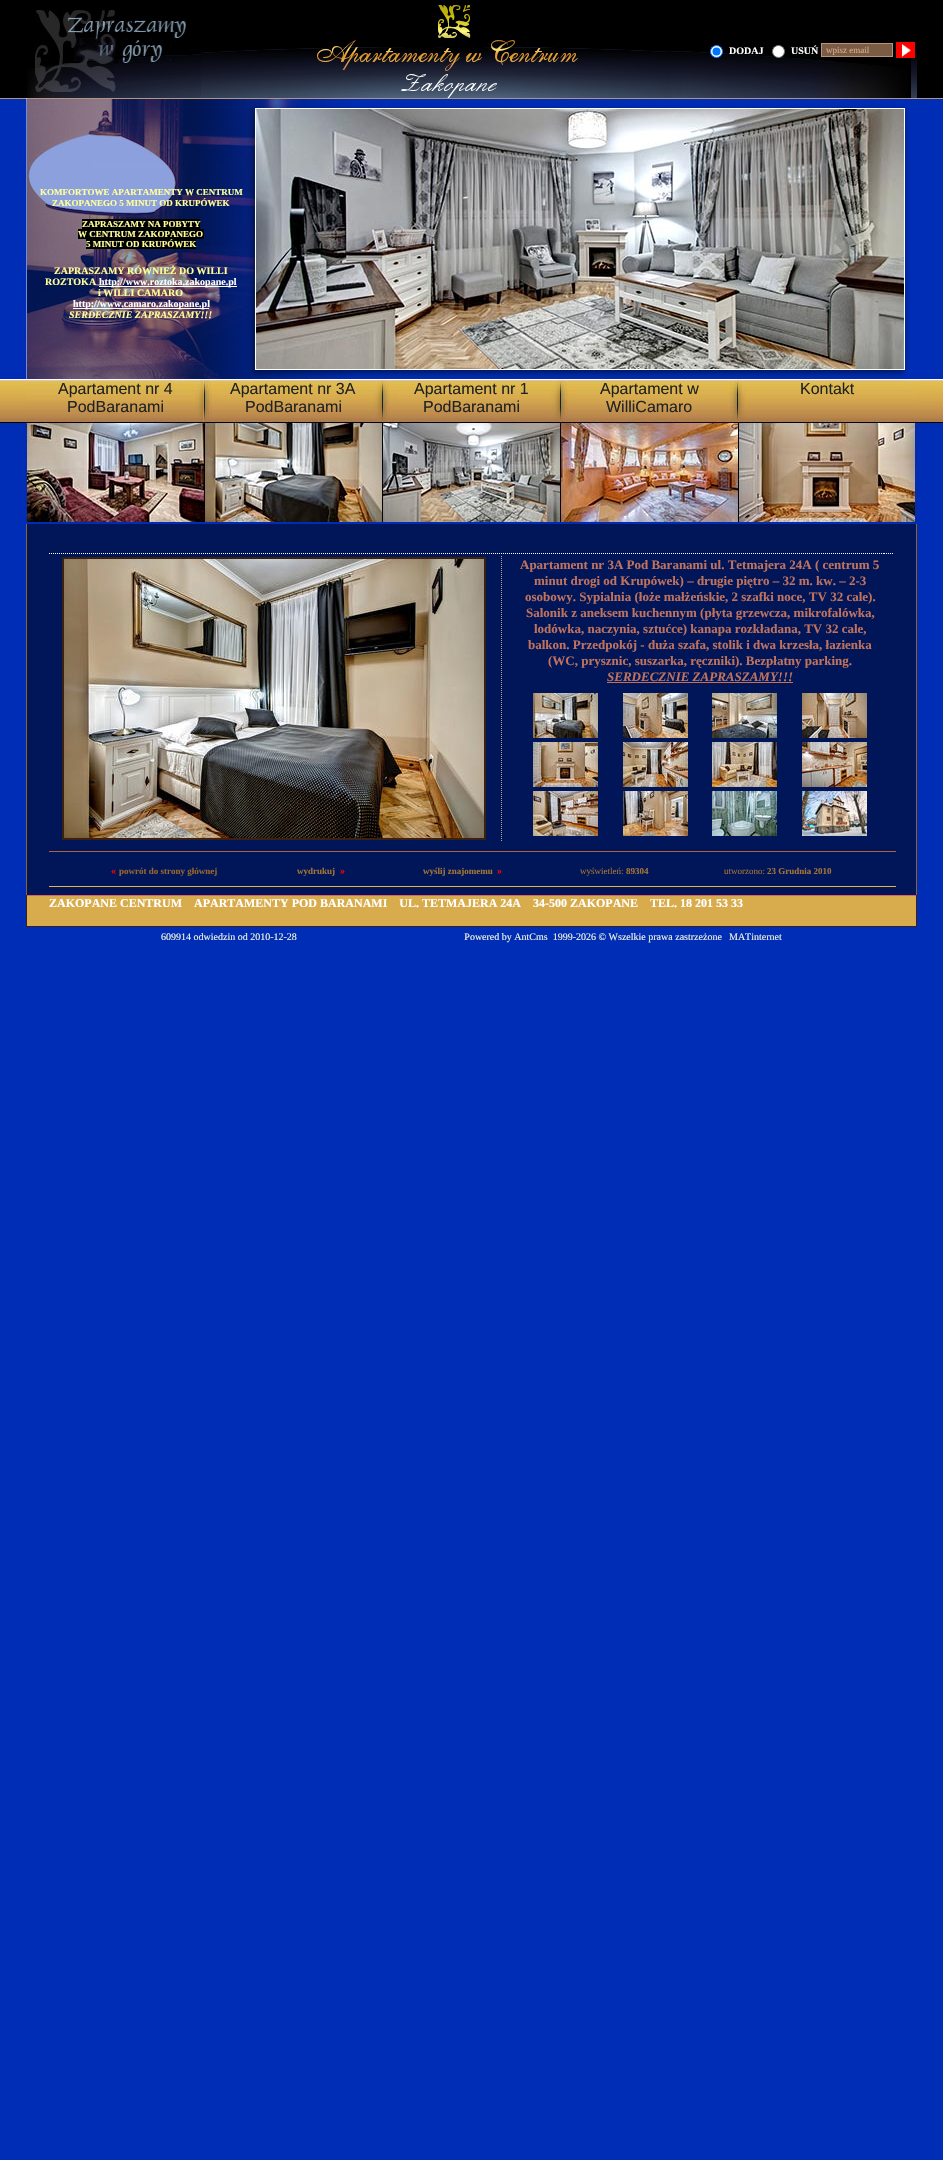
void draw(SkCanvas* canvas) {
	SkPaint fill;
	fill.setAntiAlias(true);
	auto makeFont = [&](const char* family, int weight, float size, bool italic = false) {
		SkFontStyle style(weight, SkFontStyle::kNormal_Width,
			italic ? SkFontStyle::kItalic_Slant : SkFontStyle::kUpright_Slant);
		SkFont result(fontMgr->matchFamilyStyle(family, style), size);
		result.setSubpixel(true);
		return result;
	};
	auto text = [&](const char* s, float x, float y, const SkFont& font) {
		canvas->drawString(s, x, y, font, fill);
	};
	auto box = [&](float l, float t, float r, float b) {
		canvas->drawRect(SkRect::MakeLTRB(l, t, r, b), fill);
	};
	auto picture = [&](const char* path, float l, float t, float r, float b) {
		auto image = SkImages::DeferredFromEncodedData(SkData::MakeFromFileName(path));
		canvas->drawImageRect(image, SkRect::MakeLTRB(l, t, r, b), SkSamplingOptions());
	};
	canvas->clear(0xFF002DB6);
	picture("image0.png", 0, 0, 943, 423);
	picture("image1.png", 27, 10, 201, 98);
	picture("image2.png", 201, 5, 703, 98);
	picture("image3.png", 703, 52, 917, 98);
	fill.setColor(0xFFFFFFFF);
	canvas->drawCircle(716.5f, 51.5f, 6, fill);
	fill.setStyle(SkPaint::kStroke_Style);
	fill.setStrokeWidth(1);
	fill.setColor(0xFF0075FF);
	canvas->drawCircle(716.5f, 51.5f, 6, fill);
	fill.setStyle(SkPaint::kFill_Style);
	canvas->drawCircle(716.5f, 51.5f, 4, fill);
	fill.setColor(0xFFFFFFFF);
	canvas->drawCircle(778.5f, 51.5f, 6, fill);
	fill.setStyle(SkPaint::kStroke_Style);
	fill.setColor(0xFF767676);
	canvas->drawCircle(778.5f, 51.5f, 6, fill);
	fill.setStyle(SkPaint::kFill_Style);
	fill.setColor(0xFF7A5C45);
	canvas->drawRect(SkRect::MakeLTRB(821.5f, 43.5f, 892.5f, 56.5f), fill);
	fill.setStyle(SkPaint::kStroke_Style);
	fill.setColor(0xFFB8937B);
	canvas->drawRect(SkRect::MakeLTRB(821.5f, 43.5f, 892.5f, 56.5f), fill);
	picture("image4.png", 896, 42, 915, 58);
	picture("image5.png", 26, 98, 908, 109);
	picture("image6.png", 26, 109, 256, 369);
	fill.setStyle(SkPaint::kFill_Style);
	fill.setColor(0xFF000000);
	box(82, 219, 200, 229);
	box(78, 229, 204, 239);
	box(86, 239, 196, 249);
	fill.setColor(0xFFFFFFFF);
	box(99, 286, 237, 287);
	box(73, 308, 209, 309);
	picture("image7.png", 256, 109, 904, 369);
	picture("image8.png", 904, 109, 910, 369);
	picture("image9.png", 26, 369, 910, 380);
	picture("image10.png", 916, 380, 917, 522);
	picture("image11.png", 26, 380, 204, 522);
	picture("image12.png", 204, 380, 382, 522);
	picture("image13.png", 382, 380, 560, 522);
	picture("image14.png", 560, 380, 738, 522);
	picture("image15.png", 738, 380, 916, 522);
	fill.setColor(0xFF001658);
	box(27, 524, 916, 895);
	fill.setColor(0xFF91622C);
	box(916, 524, 917, 895);
	box(26, 524, 27, 895);
	fill.setStyle(SkPaint::kStroke_Style);
	fill.setColor(0xFFFFFFFF);
	fill.setPathEffect(SkDashPathEffect::Make({{1, 1}}, 0));
	canvas->drawPath(SkPathBuilder().moveTo(49, 553.5f).lineTo(59, 553.5f).detach(), fill);
	fill.setPathEffect(nullptr);
	fill.setPathEffect(SkDashPathEffect::Make({{1, 1}}, 0));
	canvas->drawPath(SkPathBuilder().moveTo(59, 553.5f).lineTo(884, 553.5f).detach(), fill);
	fill.setPathEffect(nullptr);
	fill.setPathEffect(SkDashPathEffect::Make({{1, 1}}, 0));
	canvas->drawPath(SkPathBuilder().moveTo(884, 553.5f).lineTo(894, 553.5f).detach(), fill);
	fill.setPathEffect(nullptr);
	fill.setStrokeWidth(2);
	fill.setColor(0xFF39200F);
	canvas->drawRect(SkRect::MakeLTRB(63, 558, 485, 839), fill);
	picture("image16.png", 64, 559, 484, 838);
	fill.setStrokeWidth(1);
	fill.setColor(0xFFC0A088);
	fill.setPathEffect(SkDashPathEffect::Make({{1, 1}}, 0));
	canvas->drawPath(SkPathBuilder().moveTo(501.5f, 556).lineTo(501.5f, 841).detach(), fill);
	fill.setPathEffect(nullptr);
	fill.setStyle(SkPaint::kFill_Style);
	fill.setColor(0xFFC1725D);
	box(607, 682, 793, 683);
	picture("image17.png", 533, 693, 598, 738);
	picture("image18.png", 623, 693, 688, 738);
	picture("image19.png", 712, 693, 777, 738);
	picture("image20.png", 802, 693, 867, 738);
	picture("image21.png", 533, 742, 598, 787);
	picture("image22.png", 623, 742, 688, 787);
	picture("image23.png", 712, 742, 777, 787);
	picture("image24.png", 802, 742, 867, 787);
	picture("image25.png", 533, 791, 598, 836);
	picture("image26.png", 623, 791, 688, 836);
	picture("image27.png", 712, 791, 777, 836);
	picture("image28.png", 802, 791, 867, 836);
	fill.setColor(0xFFB0633A);
	box(49, 851, 896, 852);
	fill.setColor(0xFFEBB143);
	box(49, 886, 896, 887);
	fill.setColor(0xFFD8AC4D);
	box(27, 896, 916, 926);
	fill.setColor(0xFFDE6063);
	box(26, 895, 917, 896);
	fill.setColor(0xFF3B211D);
	box(916, 895, 917, 927);
	box(26, 926, 917, 927);
	box(26, 895, 27, 927);
	auto font1 = makeFont("Liberation Serif", 700, 10);
	fill.setColor(0xFFFFFFFF);
	text("DODAJ", 729, 54, font1);
	text("USUŃ", 791, 54, font1);
	auto font2 = makeFont("Liberation Serif", 400, 9);
	fill.setColor(0xFFD5AC8D);
	text("wpisz email", 826, 53, font2);
	auto font3 = makeFont("Liberation Serif", 700, 9);
	fill.setColor(0xFFFFFF99);
	text("KOMFORTOWE APARTAMENTY W CENTRUM", 40, 195, font3);
	text("ZAKOPANEGO 5 MINUT OD KRUPÓWEK", 52, 206, font3);
	text("ZAPRASZAMY NA POBYTY", 82, 227, font3);
	text("W CENTRUM ZAKOPANEGO", 78, 237, font3);
	text("5 MINUT OD KRUPÓWEK", 86, 247, font3);
	text("ZAPRASZAMY RÓWNIEŻ DO WILLI", 54, 274, font1);
	text("ROZTOKA", 45, 285, font1);
	fill.setColor(0xFFFFFFFF);
	text("http://www.roztoka.zakopane.pl", 99, 285, font1);
	fill.setColor(0xFFFFFF99);
	text("i WILLI CAMARO", 98, 296, font1);
	fill.setColor(0xFFFFFFFF);
	text("http://www.camaro.zakopane.pl", 73, 307, font1);
	auto font4 = makeFont("Liberation Serif", 700, 10, true);
	fill.setColor(0xFFFFFF99);
	text("SERDECZNIE ZAPRASZAMY!!!", 69, 318, font4);
	auto font5 = makeFont("Liberation Sans", 400, 16);
	fill.setColor(0xFF222222);
	text("Apartament nr 4", 58, 394, font5);
	text("PodBaranami", 67, 412, font5);
	text("Apartament nr 3A", 230, 394, font5);
	text("PodBaranami", 245, 412, font5);
	text("Apartament nr 1", 414, 394, font5);
	text("PodBaranami", 423, 412, font5);
	text("Apartament w", 600, 394, font5);
	text("WilliCamaro", 606, 412, font5);
	text("Kontakt", 800, 394, font5);
	auto font6 = makeFont("Liberation Serif", 700, 13);
	fill.setColor(0xFFC1725D);
	text("Apartament nr 3A Pod Baranami ul. Tetmajera 24A ( centrum 5", 520, 569, font6);
	text("minut drogi od Krupówek) – drugie piętro – 32 m. kw. – 2-3", 534, 585, font6);
	text("osobowy. Sypialnia (łoże małżeńskie, 2 szafki noce, TV 32 cale).", 525, 601, font6);
	text("Salonik z aneksem kuchennym (płyta grzewcza, mikrofalówka,", 526, 617, font6);
	text("lodówka, naczynia, sztućce) kanapa rozkładana, TV 32 cale,", 534, 633, font6);
	text("balkon. Przedpokój - duża szafa, stolik i dwa krzesła, łazienka", 528, 649, font6);
	text("(WC, prysznic, suszarka, ręczniki). Bezpłatny parking.", 548, 665, font6);
	auto font7 = makeFont("Liberation Serif", 700, 13, true);
	text("SERDECZNIE ZAPRASZAMY!!!", 607, 681, font7);
	fill.setColor(0xFFFF0000);
	text("«", 111, 874, font1);
	fill.setColor(0xFF98662E);
	text("powrót do strony głównej", 119, 874, font3);
	fill.setColor(0xFFA47436);
	text("wydrukuj", 297, 874, font3);
	fill.setColor(0xFFFF0000);
	text("»", 340, 874, font1);
	fill.setColor(0xFFA47436);
	text("wyślij znajomemu", 423, 874, font3);
	fill.setColor(0xFFFF0000);
	text("»", 497, 874, font1);
	fill.setColor(0xFFA47436);
	text("wyświetleń:", 580, 874, font2);
	text("89304", 626, 874, font3);
	text("utworzono:", 724, 874, font2);
	text("23 Grudnia 2010", 767, 874, font3);
	auto font8 = makeFont("Liberation Serif", 700, 12);
	fill.setColor(0xFFFFFFFF);
	text("ZAKOPANE CENTRUM    APARTAMENTY POD BARANAMI    UL. TETMAJERA 24A    34-500 ZAKOPANE    TEL. 18 201 53 33", 49, 907, font8);
	auto font9 = makeFont("Liberation Serif", 400, 10);
	fill.setColor(0xFFF5F5DC);
	text("609914 odwiedzin od 2010-12-28                                                                   Powered by AntCms  1999-2026 © Wszelkie prawa zastrzeżone", 161, 940, font9);
	text("MATinternet", 729, 940, font9);
}
